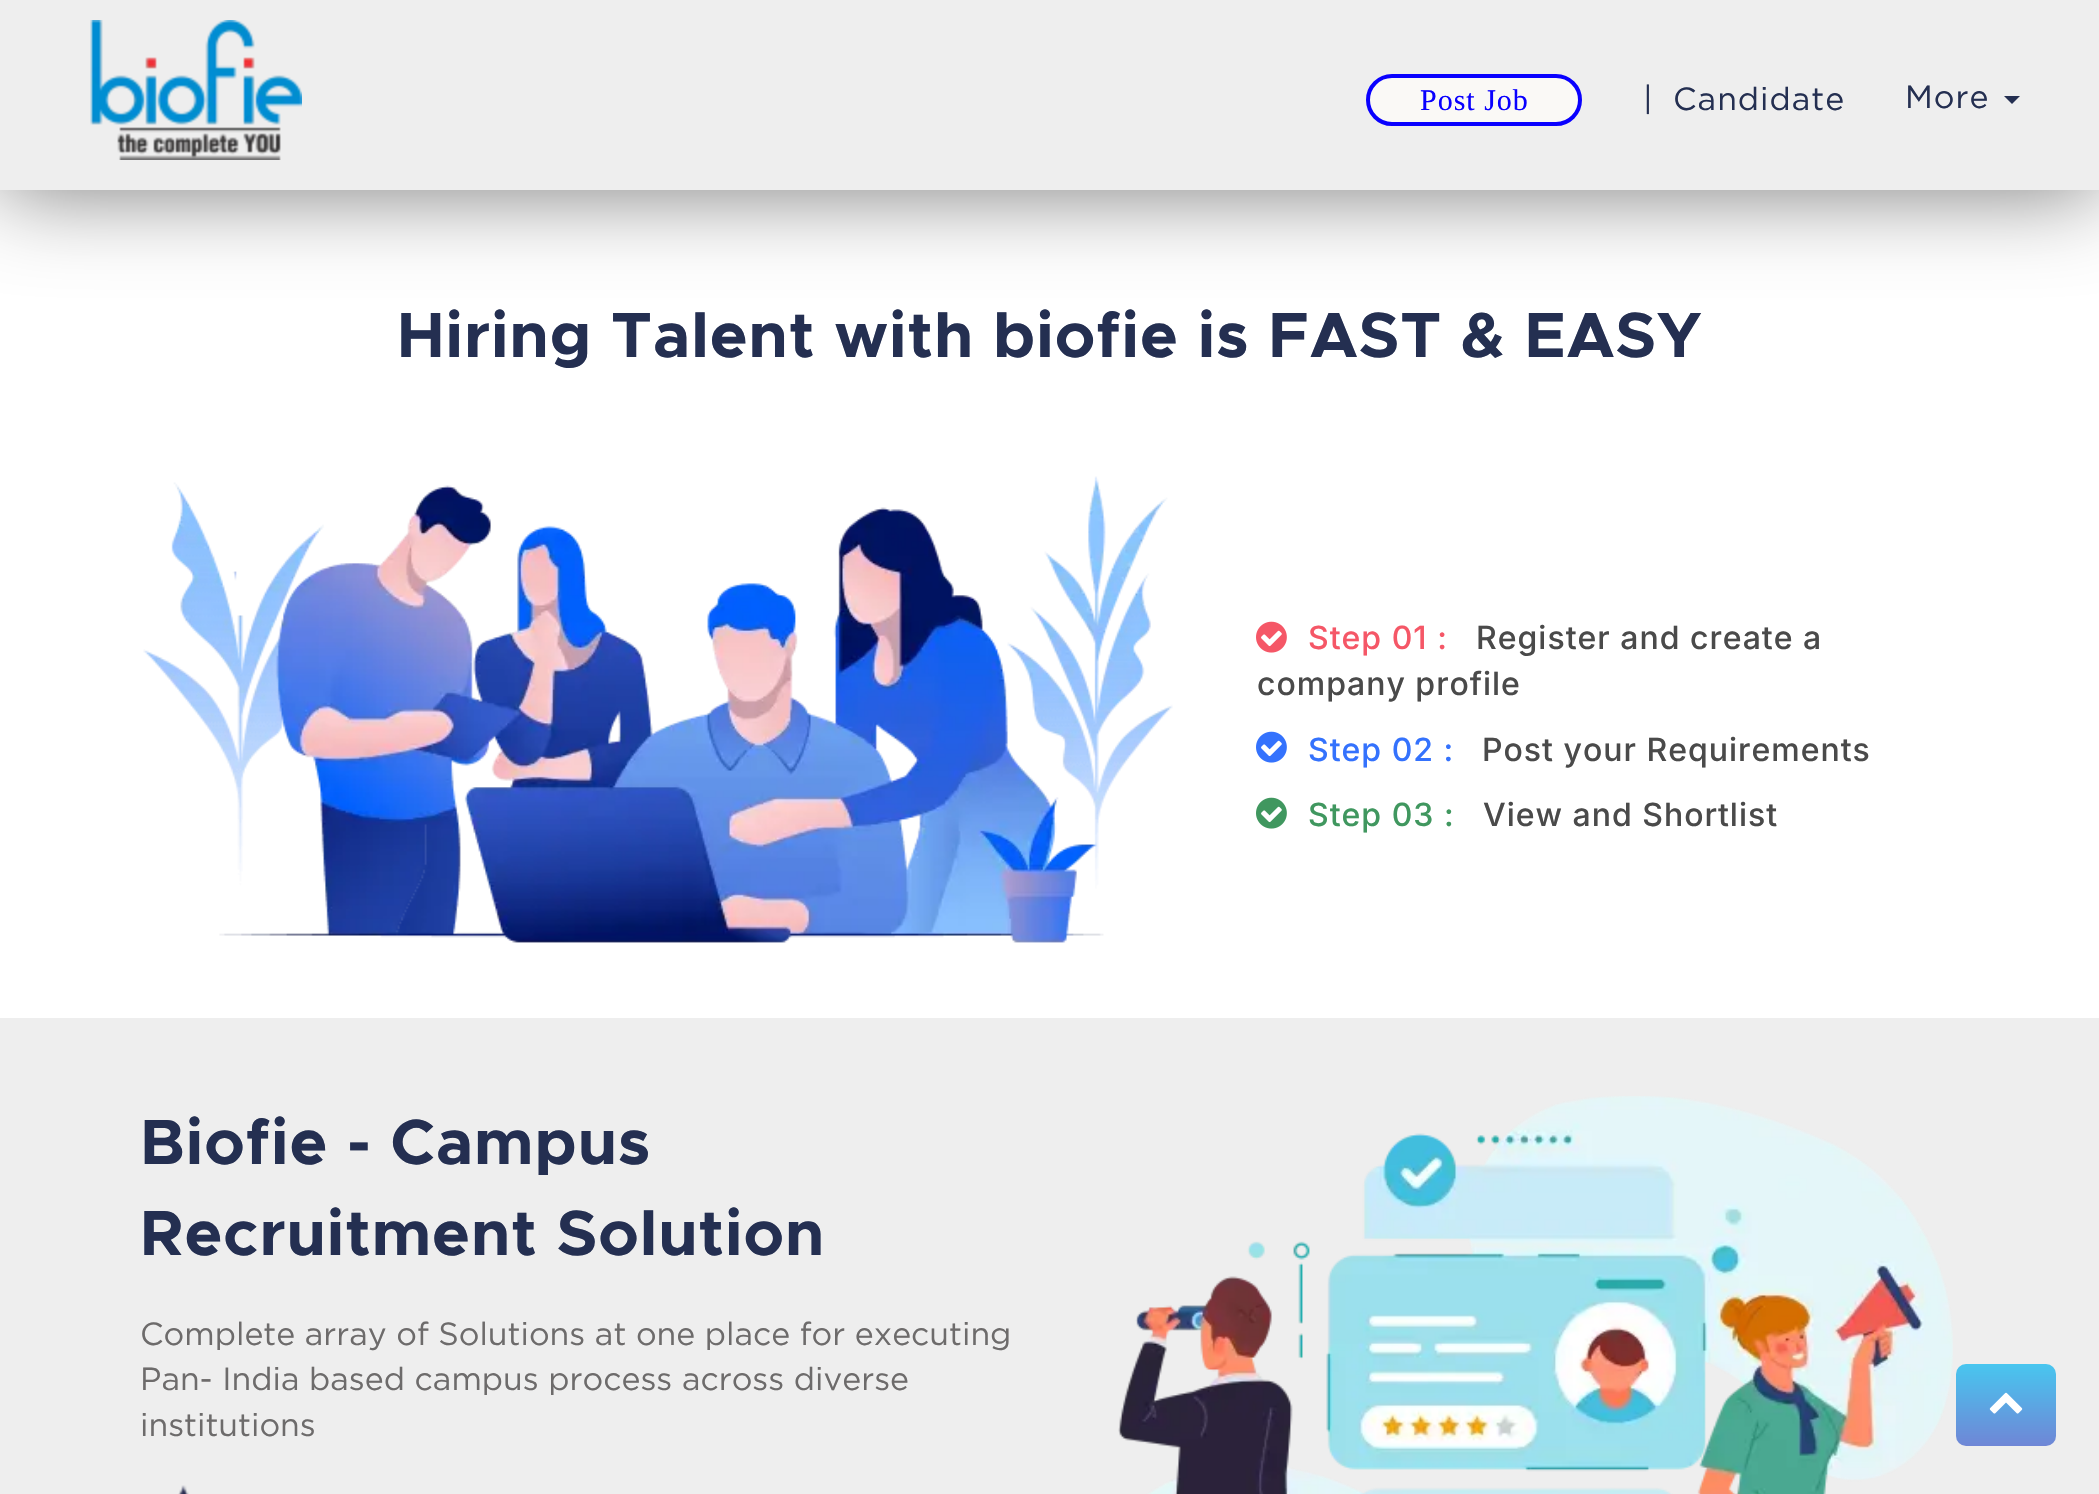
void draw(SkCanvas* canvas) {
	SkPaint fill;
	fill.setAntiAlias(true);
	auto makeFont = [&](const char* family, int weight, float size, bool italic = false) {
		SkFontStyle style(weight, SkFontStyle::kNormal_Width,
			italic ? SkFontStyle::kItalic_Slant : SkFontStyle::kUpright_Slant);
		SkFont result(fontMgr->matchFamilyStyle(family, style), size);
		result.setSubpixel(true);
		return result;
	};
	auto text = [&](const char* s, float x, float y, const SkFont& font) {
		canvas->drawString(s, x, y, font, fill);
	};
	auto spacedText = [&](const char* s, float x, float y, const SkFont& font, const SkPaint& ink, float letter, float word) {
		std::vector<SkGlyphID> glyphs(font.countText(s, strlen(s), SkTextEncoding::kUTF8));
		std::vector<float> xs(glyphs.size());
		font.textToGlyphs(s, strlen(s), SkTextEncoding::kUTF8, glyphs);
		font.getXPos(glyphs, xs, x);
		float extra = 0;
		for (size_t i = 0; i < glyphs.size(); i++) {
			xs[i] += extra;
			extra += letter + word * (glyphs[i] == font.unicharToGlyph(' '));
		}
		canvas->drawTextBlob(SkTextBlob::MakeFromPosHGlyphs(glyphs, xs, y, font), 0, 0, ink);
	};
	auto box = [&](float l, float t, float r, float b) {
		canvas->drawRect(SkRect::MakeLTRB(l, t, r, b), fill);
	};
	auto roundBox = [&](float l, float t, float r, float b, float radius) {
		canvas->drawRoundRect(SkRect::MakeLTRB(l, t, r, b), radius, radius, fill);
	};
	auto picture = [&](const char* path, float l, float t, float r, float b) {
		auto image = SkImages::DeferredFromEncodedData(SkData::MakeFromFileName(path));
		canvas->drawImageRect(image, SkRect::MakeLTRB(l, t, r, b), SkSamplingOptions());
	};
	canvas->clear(0xFFFFFFFF);
	fill.setColor(0xFF777777);
	fill.setMaskFilter(SkMaskFilter::MakeBlur(kNormal_SkBlurStyle, 45));
	canvas->drawRect(SkRect::MakeLTRB(0, 0, 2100, 190), fill);
	fill.setMaskFilter(nullptr);
	fill.setColor(0xFFEEEEEE);
	box(0, 0, 2099, 190);
	picture("image0.png", 90, 20, 302, 160);
	fill.setColor(0xFFFAF9F6);
	canvas->drawRoundRect(SkRect::MakeLTRB(1368, 76, 1580, 124), 24, 24, fill);
	fill.setStyle(SkPaint::kStroke_Style);
	fill.setStrokeWidth(4);
	fill.setColor(0xFF0900FF);
	canvas->drawRoundRect(SkRect::MakeLTRB(1368, 76, 1580, 124), 24, 24, fill);
	fill.setStyle(SkPaint::kFill_Style);
	fill.setColor(0xFF242F51);
	canvas->drawPath(SkPathBuilder().moveTo(2004, 96).lineTo(2020, 96).lineTo(2012, 104).close().detach(), fill);
	picture("image1.png", 143, 476, 1173, 943);
	picture("image2.png", 1256, 621, 1287, 653);
	picture("image3.png", 1256, 731, 1287, 763);
	picture("image4.png", 1256, 797, 1287, 829);
	fill.setColor(0xFFEEEEEE);
	box(0, 1018, 2099, 1494);
	picture("image5.png", 178, 1485, 189, 1494);
	picture("image6.png", 1118, 1096, 1953, 1494);
	{
		const SkColor colors[] = {0xFF48C6EF, 0xFF6F86D6};
		const float stops[] = {0, 1};
		const SkPoint ends[] = {{2006, 1364}, {2006, 1446}};
		fill.setShader(SkGradientShader::MakeLinear(ends, colors, stops, 2, SkTileMode::kClamp));
		fill.setAlpha(255);
	}
	roundBox(1956, 1364, 2056, 1446, 10);
	picture("image7.png", 1989, 1392, 2023, 1414);
	auto font1 = makeFont("Liberation Serif", 400, 30);
	fill.setShader(nullptr);
	fill.setColor(0xFF0900FF);
	spacedText("Post Job", 1420, 110, font1, fill, 1, 0);
	auto font2 = makeFont("Gotham", 400, 32);
	fill.setColor(0xFF242F51);
	spacedText("|", 1643, 110, font2, fill, 1, 0);
	spacedText("Candidate", 1673, 110, font2, fill, 1, 0);
	spacedText("More", 1905, 108, font2, fill, 1, 0);
	auto font3 = makeFont("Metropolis", 700, 64);
	spacedText("Hiring Talent with biofie is FAST & EASY", 397, 357, font3, fill, 1, 0);
	auto font4 = makeFont("Inter", 500, 32);
	fill.setColor(0xFFF55767);
	spacedText("Step 01 :", 1308, 649, font4, fill, 1, 0);
	fill.setColor(0xFF4A4A4A);
	spacedText("Register and create a", 1476, 649, font4, fill, 1, 0);
	spacedText("company profile", 1257, 695, font4, fill, 1, 0);
	fill.setColor(0xFF3472FD);
	spacedText("Step 02 :", 1308, 761, font4, fill, 1, 0);
	fill.setColor(0xFF4A4A4A);
	spacedText("Post your Requirements", 1482, 761, font4, fill, 1, 0);
	fill.setColor(0xFF40975F);
	spacedText("Step 03 :", 1308, 826, font4, fill, 1, 0);
	fill.setColor(0xFF4A4A4A);
	spacedText("View and Shortlist", 1483, 826, font4, fill, 1, 0);
	fill.setColor(0xFF242F51);
	spacedText("Biofie - Campus", 140, 1164, font3, fill, 1, 0);
	spacedText("Recruitment Solution", 140, 1255, font3, fill, 1, 0);
	fill.setColor(0xFF6D6B6B);
	text("Complete array of Solutions at one place for executing", 140, 1345, font2);
	text("Pan- India based campus process across diverse", 140, 1390, font2);
	text("institutions", 140, 1436, font2);
}
